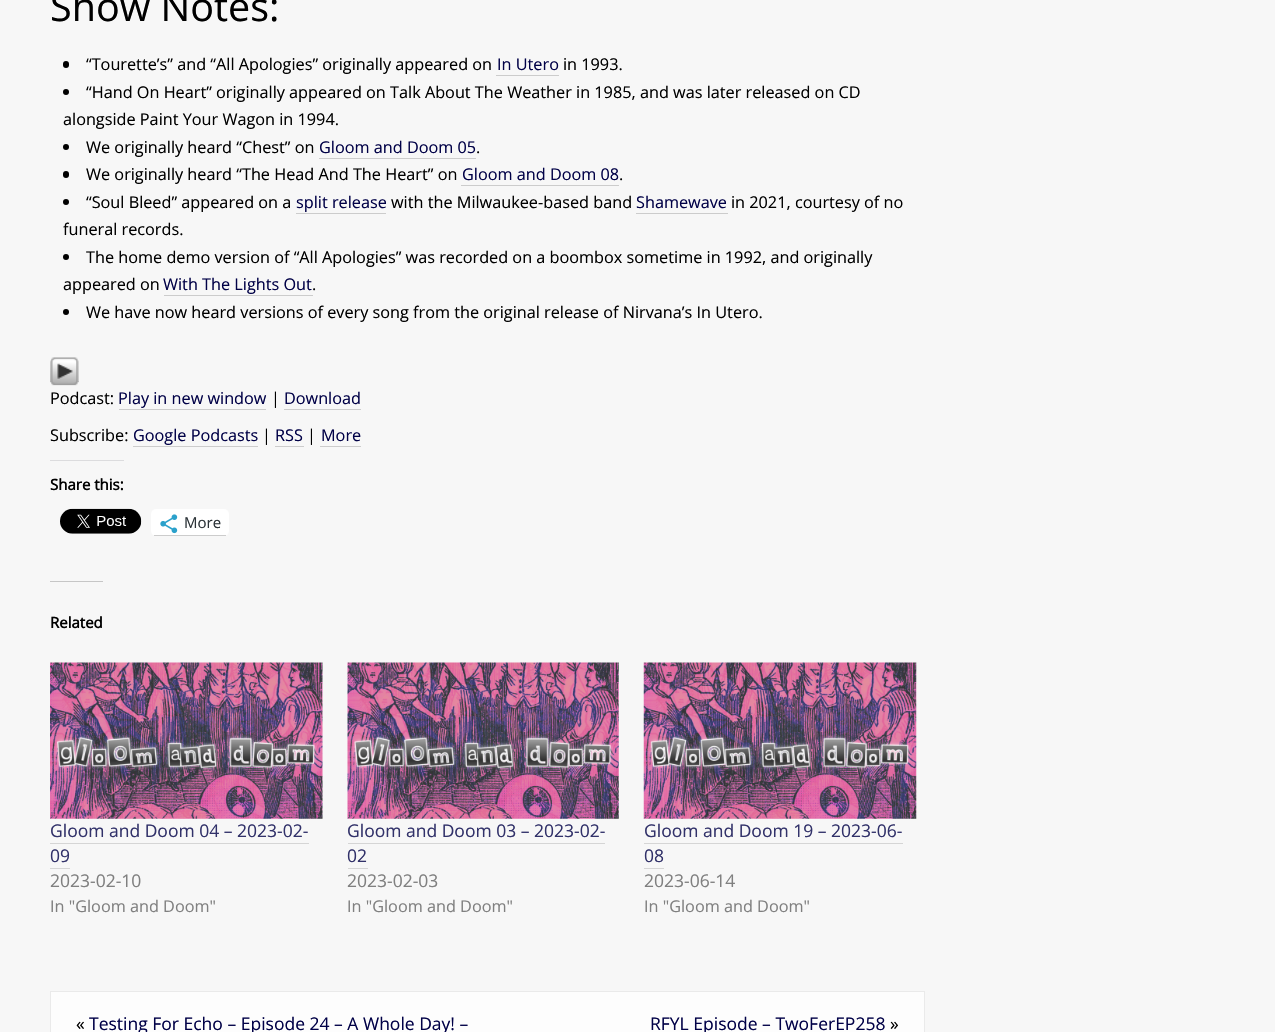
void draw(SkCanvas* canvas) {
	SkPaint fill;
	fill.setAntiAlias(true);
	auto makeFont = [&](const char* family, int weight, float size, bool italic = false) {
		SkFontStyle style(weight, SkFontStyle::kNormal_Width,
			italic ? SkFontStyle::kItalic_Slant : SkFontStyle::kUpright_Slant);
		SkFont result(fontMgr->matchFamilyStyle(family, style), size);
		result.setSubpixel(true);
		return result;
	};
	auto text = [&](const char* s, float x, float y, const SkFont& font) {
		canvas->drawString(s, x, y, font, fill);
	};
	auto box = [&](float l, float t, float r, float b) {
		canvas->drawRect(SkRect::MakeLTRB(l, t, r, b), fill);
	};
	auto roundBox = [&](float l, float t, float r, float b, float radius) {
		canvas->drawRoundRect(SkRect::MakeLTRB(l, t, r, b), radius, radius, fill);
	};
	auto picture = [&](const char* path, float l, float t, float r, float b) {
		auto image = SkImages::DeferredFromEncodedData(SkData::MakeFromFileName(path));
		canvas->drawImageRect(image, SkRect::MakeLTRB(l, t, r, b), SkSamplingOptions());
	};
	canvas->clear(0xFFF7F7F7);
	fill.setColor(0xFF000000);
	roundBox(63, 61, 69, 68, 3);
	fill.setColor(0xFFCCCCCC);
	box(496, 75, 559, 76);
	fill.setColor(0xFF000000);
	canvas->drawCircle(66, 92, 3, fill);
	canvas->drawCircle(66, 147, 3, fill);
	fill.setColor(0xFFCCCCCC);
	box(319, 158, 476, 159);
	fill.setColor(0xFF000000);
	roundBox(63, 171, 69, 178, 3);
	fill.setColor(0xFFCCCCCC);
	box(461, 185, 619, 186);
	fill.setColor(0xFF000000);
	canvas->drawCircle(66, 202, 3, fill);
	fill.setColor(0xFFCCCCCC);
	box(296, 213, 386, 214);
	box(636, 213, 728, 214);
	fill.setColor(0xFF000000);
	canvas->drawCircle(66, 257, 3, fill);
	fill.setColor(0xFFCCCCCC);
	box(164, 295, 313, 296);
	fill.setColor(0xFF000000);
	canvas->drawCircle(66, 312, 3, fill);
	fill.setColor(0xFFCCCCCC);
	box(50, 381, 79, 382);
	picture("image0.png", 50, 357, 79, 386);
	box(119, 409, 266, 410);
	box(284, 409, 361, 410);
	box(133, 446, 258, 447);
	box(275, 446, 304, 447);
	box(320, 446, 361, 447);
	fill.setColor(0xFFDCDCDE);
	box(50, 460, 124, 461);
	picture("image1.png", 60, 508, 142, 534);
	fill.setColor(0xFFFFFFFF);
	roundBox(151, 509, 229, 536, 5);
	fill.setColor(0xFFCCCCCC);
	box(154, 535, 226, 536);
	picture("image2.png", 160, 514, 178, 534);
	fill.setColor(0xFFC6C6C6);
	box(50, 581, 103, 582);
	picture("image3.png", 50, 662, 323, 819);
	fill.setColor(0xFFD5D5D5);
	box(50, 843, 309, 844);
	box(50, 868, 70, 869);
	picture("image4.png", 347, 662, 619, 819);
	box(348, 843, 605, 844);
	box(348, 868, 368, 869);
	picture("image5.png", 643, 662, 917, 819);
	box(644, 843, 903, 844);
	box(644, 868, 664, 869);
	fill.setColor(0xFFFDFDFD);
	canvas->drawRect(SkRect::MakeLTRB(50.5f, 991.5f, 924.5f, 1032.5f), fill);
	fill.setStyle(SkPaint::kStroke_Style);
	fill.setStrokeWidth(1);
	fill.setColor(0xFFEAEAEA);
	canvas->drawRect(SkRect::MakeLTRB(50.5f, 991.5f, 924.5f, 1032.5f), fill);
	auto font1 = makeFont("Open Sans", 400, 39.5f);
	fill.setStyle(SkPaint::kFill_Style);
	fill.setColor(0xFF000000);
	text("Show Notes:", 50, 21, font1);
	auto font2 = makeFont("Open Sans", 400, 16.25f);
	text("“Tourette’s” and “All Apologies” originally appeared on", 86, 70, font2);
	fill.setColor(0xFF010147);
	text("In Utero", 497, 70, font2);
	fill.setColor(0xFF000000);
	text("in 1993.", 563, 70, font2);
	text("“Hand On Heart” originally appeared on Talk About The Weather in 1985, and was later released on CD", 86, 98, font2);
	text("alongside Paint Your Wagon in 1994.", 63, 125, font2);
	text("We originally heard “Chest” on", 86, 153, font2);
	fill.setColor(0xFF010147);
	text("Gloom and Doom 05", 319, 153, font2);
	fill.setColor(0xFF000000);
	text(".", 476, 153, font2);
	text("We originally heard “The Head And The Heart” on", 86, 180, font2);
	fill.setColor(0xFF010147);
	text("Gloom and Doom 08", 462, 180, font2);
	fill.setColor(0xFF000000);
	text(".", 619, 180, font2);
	text("“Soul Bleed” appeared on a", 86, 208, font2);
	fill.setColor(0xFF010147);
	text("split release", 296, 208, font2);
	fill.setColor(0xFF000000);
	text("with the Milwaukee-based band", 391, 208, font2);
	fill.setColor(0xFF010147);
	text("Shamewave", 636, 208, font2);
	fill.setColor(0xFF000000);
	text("in 2021, courtesy of no", 731, 208, font2);
	text("funeral records.", 63, 235, font2);
	text("The home demo version of “All Apologies” was recorded on a boombox sometime in 1992, and originally", 86, 263, font2);
	text("appeared on", 63, 290, font2);
	fill.setColor(0xFF010147);
	text("With The Lights Out", 163, 290, font2);
	fill.setColor(0xFF000000);
	text(".", 312, 290, font2);
	text("We have now heard versions of every song from the original release of Nirvana’s In Utero.", 86, 318, font2);
	text("Podcast:", 50, 404, font2);
	fill.setColor(0xFF010147);
	text("Play in new window", 118, 404, font2);
	fill.setColor(0xFF000000);
	text("|", 271, 404, font2);
	fill.setColor(0xFF010147);
	text("Download", 284, 404, font2);
	fill.setColor(0xFF000000);
	text("Subscribe:", 50, 441, font2);
	fill.setColor(0xFF010147);
	text("Google Podcasts", 133, 441, font2);
	fill.setColor(0xFF000000);
	text("|", 262, 441, font2);
	fill.setColor(0xFF010147);
	text("RSS", 275, 441, font2);
	fill.setColor(0xFF000000);
	text("|", 307, 441, font2);
	fill.setColor(0xFF010147);
	text("More", 321, 441, font2);
	auto font3 = makeFont("Open Sans", 700, 15);
	fill.setColor(0xFF000000);
	text("Share this:", 50, 490, font3);
	auto font4 = makeFont("Open Sans", 400, 15);
	fill.setColor(0xFF2C3338);
	text("More", 184, 528, font4);
	fill.setColor(0xFF000000);
	text("Related", 50, 628, font3);
	auto font5 = makeFont("Open Sans", 400, 17.5f);
	fill.setColor(0xFF32326A);
	text("Gloom and Doom 04 – 2023-02-", 50, 837, font5);
	text("09", 50, 862, font5);
	fill.setColor(0xFF808080);
	text("2023-02-10", 50, 887, font5);
	text("In \"Gloom and Doom\"", 50, 912, font2);
	fill.setColor(0xFF32326A);
	text("Gloom and Doom 03 – 2023-02-", 347, 837, font5);
	text("02", 347, 862, font5);
	fill.setColor(0xFF808080);
	text("2023-02-03", 347, 887, font5);
	text("In \"Gloom and Doom\"", 347, 912, font2);
	fill.setColor(0xFF32326A);
	text("Gloom and Doom 19 – 2023-06-", 644, 837, font5);
	text("08", 644, 862, font5);
	fill.setColor(0xFF808080);
	text("2023-06-14", 644, 887, font5);
	text("In \"Gloom and Doom\"", 644, 912, font2);
	fill.setColor(0xFF000000);
	text("«", 76, 1030, font5);
	fill.setColor(0xFF010147);
	text("Testing For Echo – Episode 24 – A Whole Day! –", 89, 1030, font5);
	text("RFYL Episode – TwoFerEP258", 650, 1030, font5);
	fill.setColor(0xFF000000);
	text("»", 890, 1030, font5);
}
